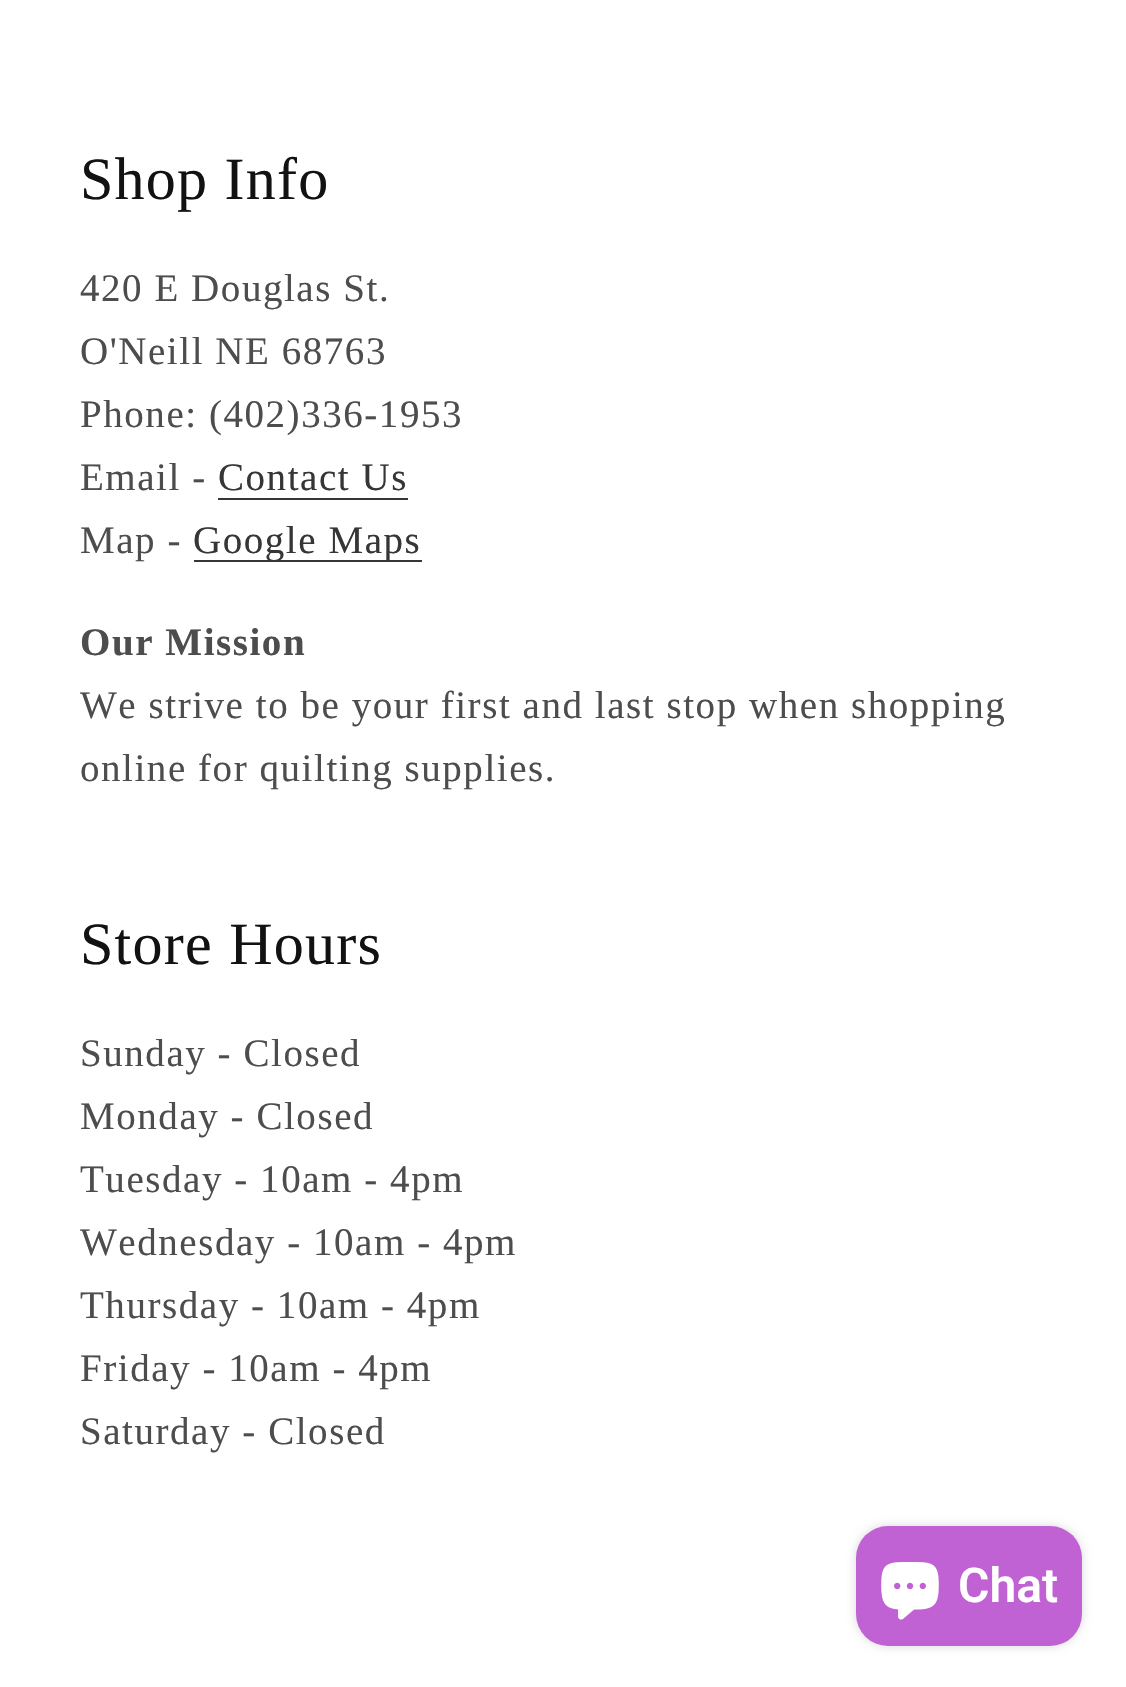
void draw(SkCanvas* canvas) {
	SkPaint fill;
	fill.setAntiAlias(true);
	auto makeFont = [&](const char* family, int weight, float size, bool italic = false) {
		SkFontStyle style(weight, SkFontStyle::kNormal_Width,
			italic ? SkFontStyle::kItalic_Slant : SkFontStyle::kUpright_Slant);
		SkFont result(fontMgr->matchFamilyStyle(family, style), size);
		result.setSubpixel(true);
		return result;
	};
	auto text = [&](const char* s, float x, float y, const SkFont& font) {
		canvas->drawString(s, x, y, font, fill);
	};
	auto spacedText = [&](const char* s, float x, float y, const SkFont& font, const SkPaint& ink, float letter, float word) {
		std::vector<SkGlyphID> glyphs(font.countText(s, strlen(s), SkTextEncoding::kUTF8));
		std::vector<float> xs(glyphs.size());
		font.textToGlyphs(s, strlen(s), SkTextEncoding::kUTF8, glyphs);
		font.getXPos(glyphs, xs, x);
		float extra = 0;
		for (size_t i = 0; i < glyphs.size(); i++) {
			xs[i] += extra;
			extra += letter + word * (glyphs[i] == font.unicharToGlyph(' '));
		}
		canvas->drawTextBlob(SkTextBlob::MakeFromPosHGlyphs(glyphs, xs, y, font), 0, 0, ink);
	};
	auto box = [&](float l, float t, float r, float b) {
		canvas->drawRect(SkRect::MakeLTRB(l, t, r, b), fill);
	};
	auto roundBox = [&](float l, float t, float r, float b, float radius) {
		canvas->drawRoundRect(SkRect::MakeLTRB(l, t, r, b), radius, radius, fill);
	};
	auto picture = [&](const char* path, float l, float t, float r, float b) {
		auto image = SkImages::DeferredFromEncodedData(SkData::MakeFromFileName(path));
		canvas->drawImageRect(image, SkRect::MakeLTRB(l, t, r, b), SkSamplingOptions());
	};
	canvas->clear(0xFFFFFFFF);
	fill.setColor(0xFF363636);
	box(218, 498, 408, 500);
	box(194, 560, 422, 562);
	fill.setColor(0x26000000);
	fill.setMaskFilter(SkMaskFilter::MakeBlur(kNormal_SkBlurStyle, 5));
	canvas->drawRoundRect(SkRect::MakeLTRB(856, 1526, 1082, 1646), 32, 32, fill);
	fill.setMaskFilter(nullptr);
	fill.setColor(0xFFC062D4);
	roundBox(856, 1526, 1082, 1646, 32);
	picture("image0.png", 881, 1562, 939, 1620);
	auto font1 = makeFont("Liberation Serif", 400, 60);
	fill.setColor(0xFF121212);
	spacedText("Shop Info", 80, 199, font1, fill, 1.25f, 0);
	auto font2 = makeFont("Liberation Serif", 400, 39);
	fill.setColor(0xFF4D4D4D);
	spacedText("420 E Douglas St.", 80, 301, font2, fill, 1.55f, 0);
	spacedText("O'Neill NE 68763", 80, 364, font2, fill, 1.55f, 0);
	spacedText("Phone: (402)336-1953", 80, 427, font2, fill, 1.55f, 0);
	spacedText("Email -", 80, 490, font2, fill, 1.55f, 0);
	fill.setColor(0xFF363636);
	spacedText("Contact Us", 218, 490, font2, fill, 1.55f, 0);
	fill.setColor(0xFF4D4D4D);
	spacedText("Map -", 80, 553, font2, fill, 1.55f, 0);
	fill.setColor(0xFF363636);
	spacedText("Google Maps", 193, 553, font2, fill, 1.55f, 0);
	auto font3 = makeFont("Liberation Serif", 700, 39);
	fill.setColor(0xFF4D4D4D);
	spacedText("Our Mission", 80, 655, font3, fill, 1.55f, 0);
	spacedText("We strive to be your first and last stop when shopping", 80, 718, font2, fill, 1.55f, 0);
	spacedText("online for quilting supplies.", 80, 781, font2, fill, 1.55f, 0);
	fill.setColor(0xFF121212);
	spacedText("Store Hours", 80, 964, font1, fill, 1.25f, 0);
	fill.setColor(0xFF4D4D4D);
	spacedText("Sunday - Closed", 80, 1066, font2, fill, 1.55f, 0);
	spacedText("Monday - Closed", 80, 1129, font2, fill, 1.55f, 0);
	spacedText("Tuesday - 10am - 4pm", 80, 1192, font2, fill, 1.55f, 0);
	spacedText("Wednesday - 10am - 4pm", 80, 1255, font2, fill, 1.55f, 0);
	spacedText("Thursday - 10am - 4pm", 80, 1318, font2, fill, 1.55f, 0);
	spacedText("Friday - 10am - 4pm", 80, 1381, font2, fill, 1.55f, 0);
	spacedText("Saturday - Closed", 80, 1444, font2, fill, 1.55f, 0);
	auto font4 = makeFont("Roboto", 600, 48);
	fill.setColor(0xFFFFFFFF);
	text("Chat", 958, 1602, font4);
}
